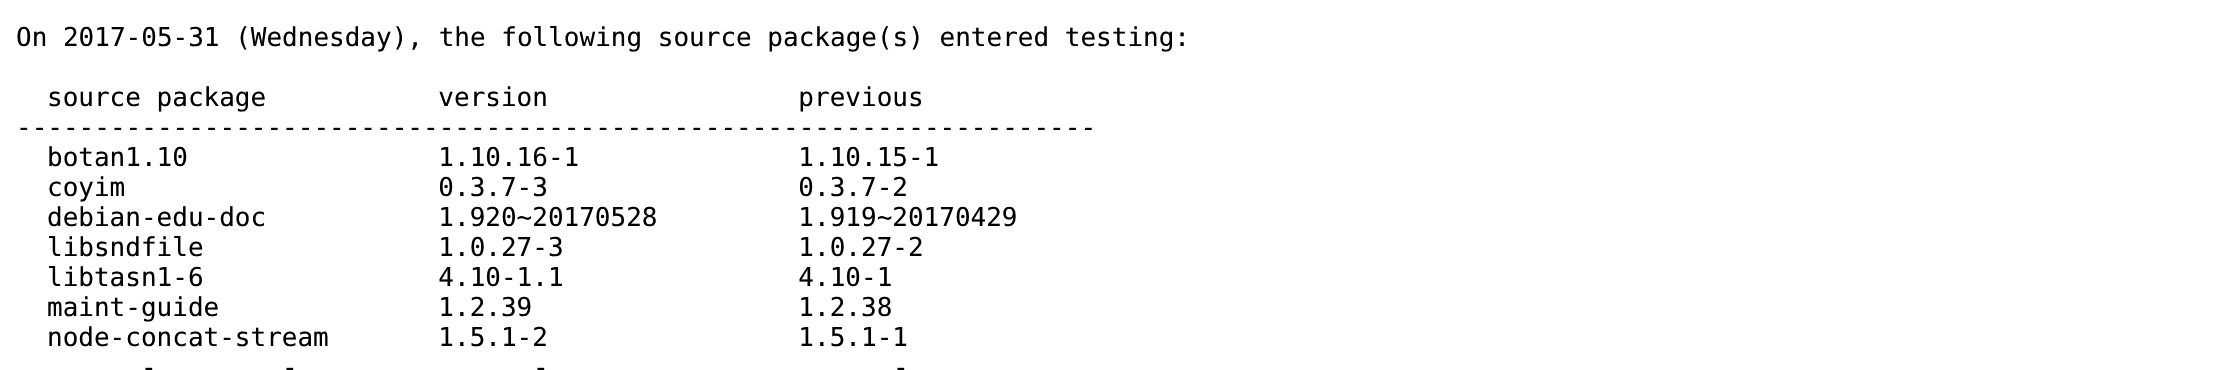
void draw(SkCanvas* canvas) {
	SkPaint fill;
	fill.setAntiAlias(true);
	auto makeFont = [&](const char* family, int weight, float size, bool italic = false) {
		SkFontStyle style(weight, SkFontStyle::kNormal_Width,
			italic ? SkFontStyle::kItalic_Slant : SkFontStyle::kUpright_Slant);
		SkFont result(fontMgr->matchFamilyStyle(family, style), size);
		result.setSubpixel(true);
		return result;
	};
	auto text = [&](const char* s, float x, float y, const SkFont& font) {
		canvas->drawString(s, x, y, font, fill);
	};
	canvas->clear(0xFFFFFFFF);
	auto font1 = makeFont("DejaVu Sans Mono", 400, 26);
	fill.setColor(0xFF000000);
	text("On 2017-05-31 (Wednesday), the following source package(s) entered testing:", 16, 46, font1);
	text("source package           version                previous", 47, 106, font1);
	text("---------------------------------------------------------------------", 16, 136, font1);
	text("botan1.10                1.10.16-1              1.10.15-1", 47, 166, font1);
	text("coyim                    0.3.7-3                0.3.7-2", 47, 196, font1);
	text("debian-edu-doc           1.920~20170528         1.919~20170429", 47, 226, font1);
	text("libsndfile               1.0.27-3               1.0.27-2", 47, 256, font1);
	text("libtasn1-6               4.10-1.1               4.10-1", 47, 286, font1);
	text("maint-guide              1.2.39                 1.2.38", 47, 316, font1);
	text("node-concat-stream       1.5.1-2                1.5.1-1", 47, 346, font1);
	text("-", 141, 376, font1);
	text("-", 282, 376, font1);
	text("-", 533, 376, font1);
	text("-", 893, 376, font1);
}
